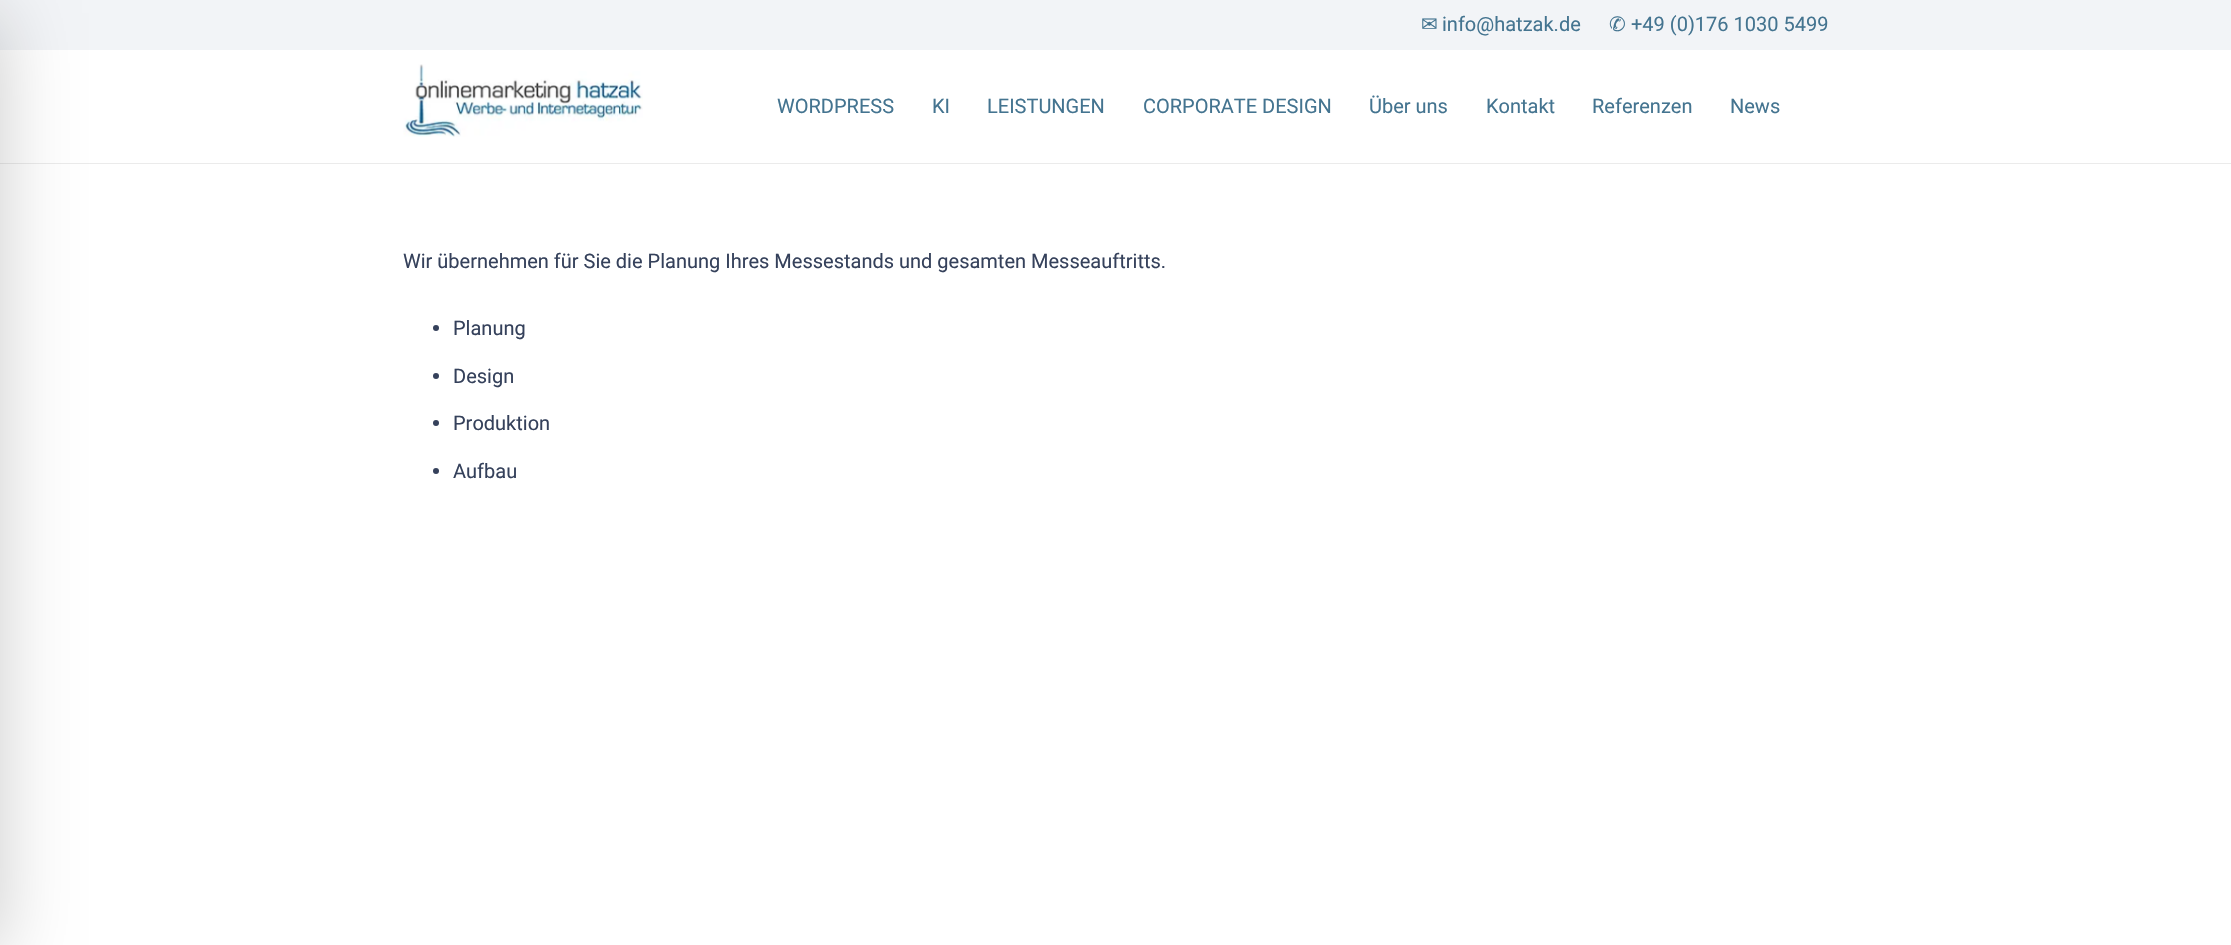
void draw(SkCanvas* canvas) {
	SkPaint fill;
	fill.setAntiAlias(true);
	auto makeFont = [&](const char* family, int weight, float size, bool italic = false) {
		SkFontStyle style(weight, SkFontStyle::kNormal_Width,
			italic ? SkFontStyle::kItalic_Slant : SkFontStyle::kUpright_Slant);
		SkFont result(fontMgr->matchFamilyStyle(family, style), size);
		result.setSubpixel(true);
		return result;
	};
	auto text = [&](const char* s, float x, float y, const SkFont& font) {
		canvas->drawString(s, x, y, font, fill);
	};
	auto box = [&](float l, float t, float r, float b) {
		canvas->drawRect(SkRect::MakeLTRB(l, t, r, b), fill);
	};
	auto picture = [&](const char* path, float l, float t, float r, float b) {
		auto image = SkImages::DeferredFromEncodedData(SkData::MakeFromFileName(path));
		canvas->drawImageRect(image, SkRect::MakeLTRB(l, t, r, b), SkSamplingOptions());
	};
	canvas->clear(0xFFFFFFFF);
	fill.setColor(0xFFF2F4F7);
	box(0, 0, 2231, 50);
	fill.setColor(0xFFEBEBEB);
	box(0, 163, 2231, 164);
	fill.setColor(0x33000000);
	fill.setMaskFilter(SkMaskFilter::MakeBlur(kNormal_SkBlurStyle, 37.5f));
	canvas->drawRect(SkRect::MakeLTRB(-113, 13, 0, 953), fill);
	fill.setMaskFilter(nullptr);
	picture("image0.png", 403, 64, 643, 137);
	fill.setColor(0xFF35415B);
	canvas->drawCircle(436, 328, 3, fill);
	canvas->drawCircle(436, 376, 3, fill);
	canvas->drawCircle(436, 423, 3, fill);
	canvas->drawCircle(436, 471, 3, fill);
	auto font1 = makeFont("DejaVu Sans", 400, 20);
	fill.setColor(0xFF447490);
	text("✉", 1421, 31, font1);
	auto font2 = makeFont("Roboto", 400, 20);
	text("info@hatzak.de", 1442, 31, font2);
	text("✆", 1609, 31, font1);
	text("+49 (0)176 1030 5499", 1631, 31, font2);
	text("WORDPRESS", 777, 113, font2);
	text("KI", 932, 113, font2);
	text("LEISTUNGEN", 987, 113, font2);
	text("CORPORATE DESIGN", 1143, 113, font2);
	text("Über uns", 1369, 113, font2);
	text("Kontakt", 1486, 113, font2);
	text("Referenzen", 1592, 113, font2);
	text("News", 1730, 113, font2);
	fill.setColor(0xFF35415B);
	text("Wir übernehmen für Sie die Planung Ihres Messestands und gesamten Messeauftritts.", 403, 268, font2);
	text("Planung", 453, 335, font2);
	text("Design", 453, 383, font2);
	text("Produktion", 453, 430, font2);
	text("Aufbau", 453, 478, font2);
}
